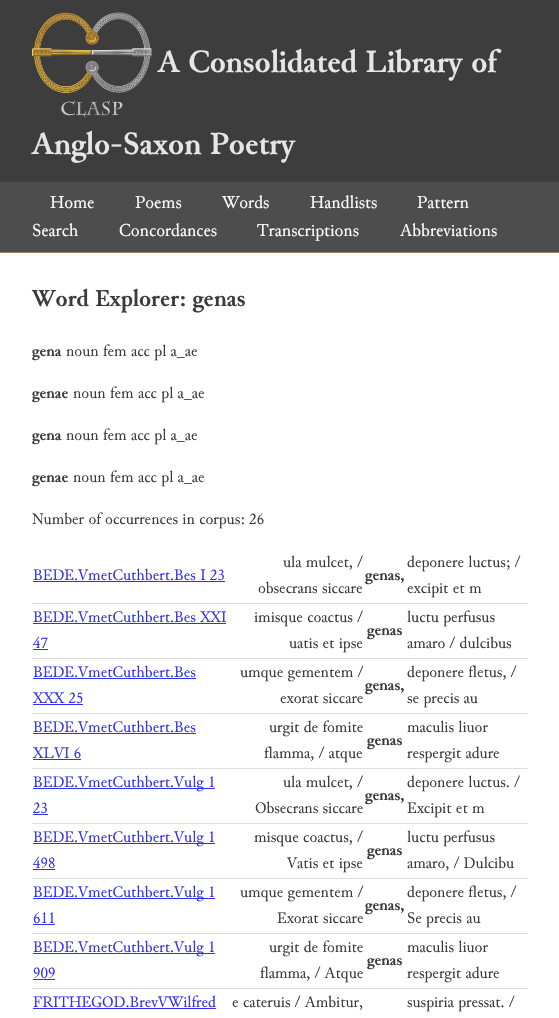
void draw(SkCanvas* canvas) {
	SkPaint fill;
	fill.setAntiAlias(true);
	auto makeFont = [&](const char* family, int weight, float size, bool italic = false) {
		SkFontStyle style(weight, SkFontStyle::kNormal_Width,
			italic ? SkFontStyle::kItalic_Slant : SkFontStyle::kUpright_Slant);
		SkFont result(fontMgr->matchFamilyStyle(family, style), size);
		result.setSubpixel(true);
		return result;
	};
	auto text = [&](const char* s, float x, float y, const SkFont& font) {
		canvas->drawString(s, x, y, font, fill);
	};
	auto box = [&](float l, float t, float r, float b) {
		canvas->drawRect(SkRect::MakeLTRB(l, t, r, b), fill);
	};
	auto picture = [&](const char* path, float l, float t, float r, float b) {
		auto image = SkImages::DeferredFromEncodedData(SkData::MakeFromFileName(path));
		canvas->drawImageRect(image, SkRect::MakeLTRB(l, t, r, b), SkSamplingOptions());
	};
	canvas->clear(0xFFFFFFFF);
	fill.setColor(0xFF3D3D3D);
	box(0, 0, 559, 182);
	picture("image0.png", 32, 12, 152, 118);
	fill.setColor(0xFF4D4D4D);
	box(0, 182, 559, 252);
	fill.setColor(0xFF9C7E68);
	box(0, 252, 559, 253);
	fill.setColor(0xFF3030F0);
	box(33, 581, 225, 582);
	fill.setColor(0xFFDDDDDD);
	box(32, 603, 528, 604);
	fill.setColor(0xFF3030F0);
	box(33, 623, 226, 624);
	box(33, 649, 48, 650);
	fill.setColor(0xFFDDDDDD);
	box(32, 658, 528, 659);
	fill.setColor(0xFF3030F0);
	box(33, 678, 196, 679);
	box(33, 704, 83, 705);
	fill.setColor(0xFFDDDDDD);
	box(32, 713, 528, 714);
	fill.setColor(0xFF3030F0);
	box(33, 733, 196, 734);
	box(33, 759, 81, 760);
	fill.setColor(0xFFDDDDDD);
	box(32, 768, 528, 769);
	fill.setColor(0xFF3030F0);
	box(33, 788, 215, 789);
	box(33, 814, 48, 815);
	fill.setColor(0xFFDDDDDD);
	box(32, 823, 528, 824);
	fill.setColor(0xFF3030F0);
	box(33, 843, 215, 844);
	box(33, 869, 55, 870);
	fill.setColor(0xFFDDDDDD);
	box(32, 878, 528, 879);
	fill.setColor(0xFF3030F0);
	box(33, 898, 215, 899);
	box(33, 924, 55, 925);
	fill.setColor(0xFFDDDDDD);
	box(32, 933, 528, 934);
	fill.setColor(0xFF3030F0);
	box(33, 953, 215, 954);
	box(33, 979, 55, 980);
	fill.setColor(0xFFDDDDDD);
	box(32, 988, 528, 989);
	fill.setColor(0xFF3030F0);
	box(33, 1008, 216, 1009);
	auto font1 = makeFont("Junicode", 700, 32);
	fill.setColor(0xFFE6E6E6);
	text("A Consolidated Library of", 158, 72, font1);
	text("Anglo-Saxon Poetry", 32, 154, font1);
	auto font2 = makeFont("Junicode", 400, 18);
	fill.setColor(0xFFFFFFFF);
	text("Home", 50, 208, font2);
	text("Poems", 135, 208, font2);
	text("Words", 222, 208, font2);
	text("Handlists", 310, 208, font2);
	text("Pattern", 417, 208, font2);
	text("Search", 32, 236, font2);
	text("Concordances", 119, 236, font2);
	text("Transcriptions", 257, 236, font2);
	text("Abbreviations", 400, 236, font2);
	auto font3 = makeFont("Junicode", 700, 24);
	fill.setColor(0xFF3B3B3B);
	text("Word Explorer: genas", 32, 306, font3);
	auto font4 = makeFont("Junicode", 700, 16);
	text("gena", 32, 356, font4);
	auto font5 = makeFont("Junicode", 400, 16);
	text("noun fem acc pl a_ae", 66, 356, font5);
	text("genae", 32, 398, font4);
	text("noun fem acc pl a_ae", 73, 398, font5);
	text("gena", 32, 440, font4);
	text("noun fem acc pl a_ae", 66, 440, font5);
	text("genae", 32, 482, font4);
	text("noun fem acc pl a_ae", 73, 482, font5);
	text("Number of occurrences in corpus: 26", 32, 524, font5);
	fill.setColor(0xFF3030F0);
	text("BEDE.VmetCuthbert.Bes I 23", 33, 580, font5);
	fill.setColor(0xFF3B3B3B);
	text("ula mulcet, /", 283, 567, font5);
	text("obsecrans siccare", 258, 593, font5);
	text("genas,", 365, 580, font4);
	text("deponere luctus; /", 407, 567, font5);
	text("excipit et m", 407, 593, font5);
	fill.setColor(0xFF3030F0);
	text("BEDE.VmetCuthbert.Bes XXI", 33, 622, font5);
	text("47", 33, 648, font5);
	fill.setColor(0xFF3B3B3B);
	text("imisque coactus /", 254, 622, font5);
	text("uatis et ipse", 289, 648, font5);
	text("genas", 367, 635, font4);
	text("luctu perfusus", 407, 622, font5);
	text("amaro / dulcibus", 407, 648, font5);
	fill.setColor(0xFF3030F0);
	text("BEDE.VmetCuthbert.Bes", 33, 677, font5);
	text("XXX 25", 33, 703, font5);
	fill.setColor(0xFF3B3B3B);
	text("umque gementem /", 240, 677, font5);
	text("exorat siccare", 280, 703, font5);
	text("genas,", 365, 690, font4);
	text("deponere fletus, /", 407, 677, font5);
	text("se precis au", 407, 703, font5);
	fill.setColor(0xFF3030F0);
	text("BEDE.VmetCuthbert.Bes", 33, 732, font5);
	text("XLVI 6", 33, 758, font5);
	fill.setColor(0xFF3B3B3B);
	text("urgit de fomite", 269, 732, font5);
	text("flamma, / atque", 264, 758, font5);
	text("genas", 367, 745, font4);
	text("maculis liuor", 407, 732, font5);
	text("respergit adure", 407, 758, font5);
	fill.setColor(0xFF3030F0);
	text("BEDE.VmetCuthbert.Vulg 1", 33, 787, font5);
	text("23", 33, 813, font5);
	fill.setColor(0xFF3B3B3B);
	text("ula mulcet, /", 283, 787, font5);
	text("Obsecrans siccare", 255, 813, font5);
	text("genas,", 365, 800, font4);
	text("deponere luctus. /", 407, 787, font5);
	text("Excipit et m", 407, 813, font5);
	fill.setColor(0xFF3030F0);
	text("BEDE.VmetCuthbert.Vulg 1", 33, 842, font5);
	text("498", 33, 868, font5);
	fill.setColor(0xFF3B3B3B);
	text("misque coactus, /", 254, 842, font5);
	text("Vatis et ipse", 287, 868, font5);
	text("genas", 367, 855, font4);
	text("luctu perfusus", 407, 842, font5);
	text("amaro, / Dulcibu", 407, 868, font5);
	fill.setColor(0xFF3030F0);
	text("BEDE.VmetCuthbert.Vulg 1", 33, 897, font5);
	text("611", 33, 923, font5);
	fill.setColor(0xFF3B3B3B);
	text("umque gementem /", 240, 897, font5);
	text("Exorat siccare", 277, 923, font5);
	text("genas,", 365, 910, font4);
	text("deponere fletus, /", 407, 897, font5);
	text("Se precis au", 407, 923, font5);
	fill.setColor(0xFF3030F0);
	text("BEDE.VmetCuthbert.Vulg 1", 33, 952, font5);
	text("909", 33, 978, font5);
	fill.setColor(0xFF3B3B3B);
	text("urgit de fomite", 269, 952, font5);
	text("flamma, / Atque", 260, 978, font5);
	text("genas", 367, 965, font4);
	text("maculis liuor", 407, 952, font5);
	text("respergit adure", 407, 978, font5);
	fill.setColor(0xFF3030F0);
	text("FRITHEGOD.BrevVWilfred", 33, 1007, font5);
	fill.setColor(0xFF3B3B3B);
	text("e cateruis / Ambitur,", 232, 1007, font5);
	text("suspiria pressat. /", 407, 1007, font5);
}
